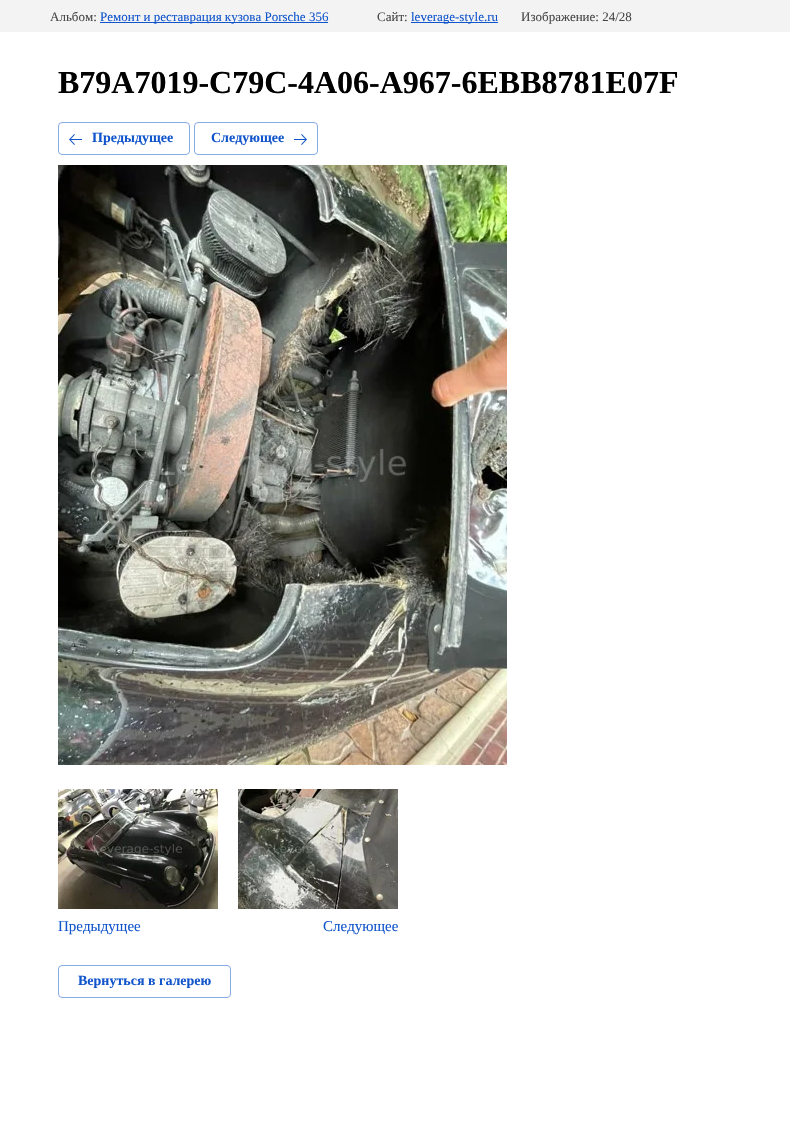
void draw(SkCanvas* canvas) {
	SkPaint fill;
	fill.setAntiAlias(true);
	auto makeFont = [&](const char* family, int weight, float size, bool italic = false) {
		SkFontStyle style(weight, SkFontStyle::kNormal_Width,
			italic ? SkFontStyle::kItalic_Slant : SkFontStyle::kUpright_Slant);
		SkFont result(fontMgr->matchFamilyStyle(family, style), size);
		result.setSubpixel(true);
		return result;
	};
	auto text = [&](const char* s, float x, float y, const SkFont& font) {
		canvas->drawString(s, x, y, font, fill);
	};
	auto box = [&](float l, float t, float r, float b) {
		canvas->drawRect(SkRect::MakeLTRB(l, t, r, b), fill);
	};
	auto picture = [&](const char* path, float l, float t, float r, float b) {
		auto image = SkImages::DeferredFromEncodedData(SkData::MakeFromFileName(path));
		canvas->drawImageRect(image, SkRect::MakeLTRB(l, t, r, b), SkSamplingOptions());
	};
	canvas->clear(0xFFFFFFFF);
	fill.setColor(0xFFF3F3F3);
	box(0, 0, 790, 32);
	fill.setColor(0xFF1155CC);
	box(100, 22, 328, 23);
	box(411, 22, 498, 23);
	fill.setStyle(SkPaint::kStroke_Style);
	fill.setStrokeWidth(1);
	fill.setColor(0xFF88AAE6);
	canvas->drawRoundRect(SkRect::MakeLTRB(58.5f, 122.5f, 189.5f, 154.5f), 3.5f, 3.5f, fill);
	picture("image0.png", 69, 134, 82, 145);
	canvas->drawRoundRect(SkRect::MakeLTRB(194.5f, 122.5f, 317.5f, 154.5f), 3.5f, 3.5f, fill);
	picture("image1.png", 294, 134, 307, 145);
	picture("image2.png", 58, 165, 507, 765);
	picture("image3.png", 58, 789, 218, 909);
	picture("image4.png", 238, 789, 398, 909);
	canvas->drawRoundRect(SkRect::MakeLTRB(58.5f, 965.5f, 230.5f, 997.5f), 3.5f, 3.5f, fill);
	auto font1 = makeFont("Liberation Serif", 400, 13);
	fill.setStyle(SkPaint::kFill_Style);
	fill.setColor(0xFF484848);
	text("Альбом:", 50, 21, font1);
	fill.setColor(0xFF1155CC);
	text("Ремонт и реставрация кузова Porsche 356", 100, 21, font1);
	fill.setColor(0xFF484848);
	text("Сайт:", 377, 21, font1);
	fill.setColor(0xFF1155CC);
	text("leverage-style.ru", 411, 21, font1);
	fill.setColor(0xFF484848);
	text("Изображение: 24/28", 521, 21, font1);
	auto font2 = makeFont("Liberation Serif", 700, 32);
	fill.setColor(0xFF000000);
	text("B79A7019-C79C-4A06-A967-6EBB8781E07F", 58, 93, font2);
	auto font3 = makeFont("Liberation Serif", 700, 14);
	fill.setColor(0xFF1155CC);
	text("Предыдущее", 92, 142, font3);
	text("Следующее", 211, 142, font3);
	auto font4 = makeFont("Liberation Serif", 400, 15);
	text("Предыдущее", 58, 931, font4);
	text("Следующее", 323, 931, font4);
	text("Вернуться в галерею", 78, 985, font3);
}
